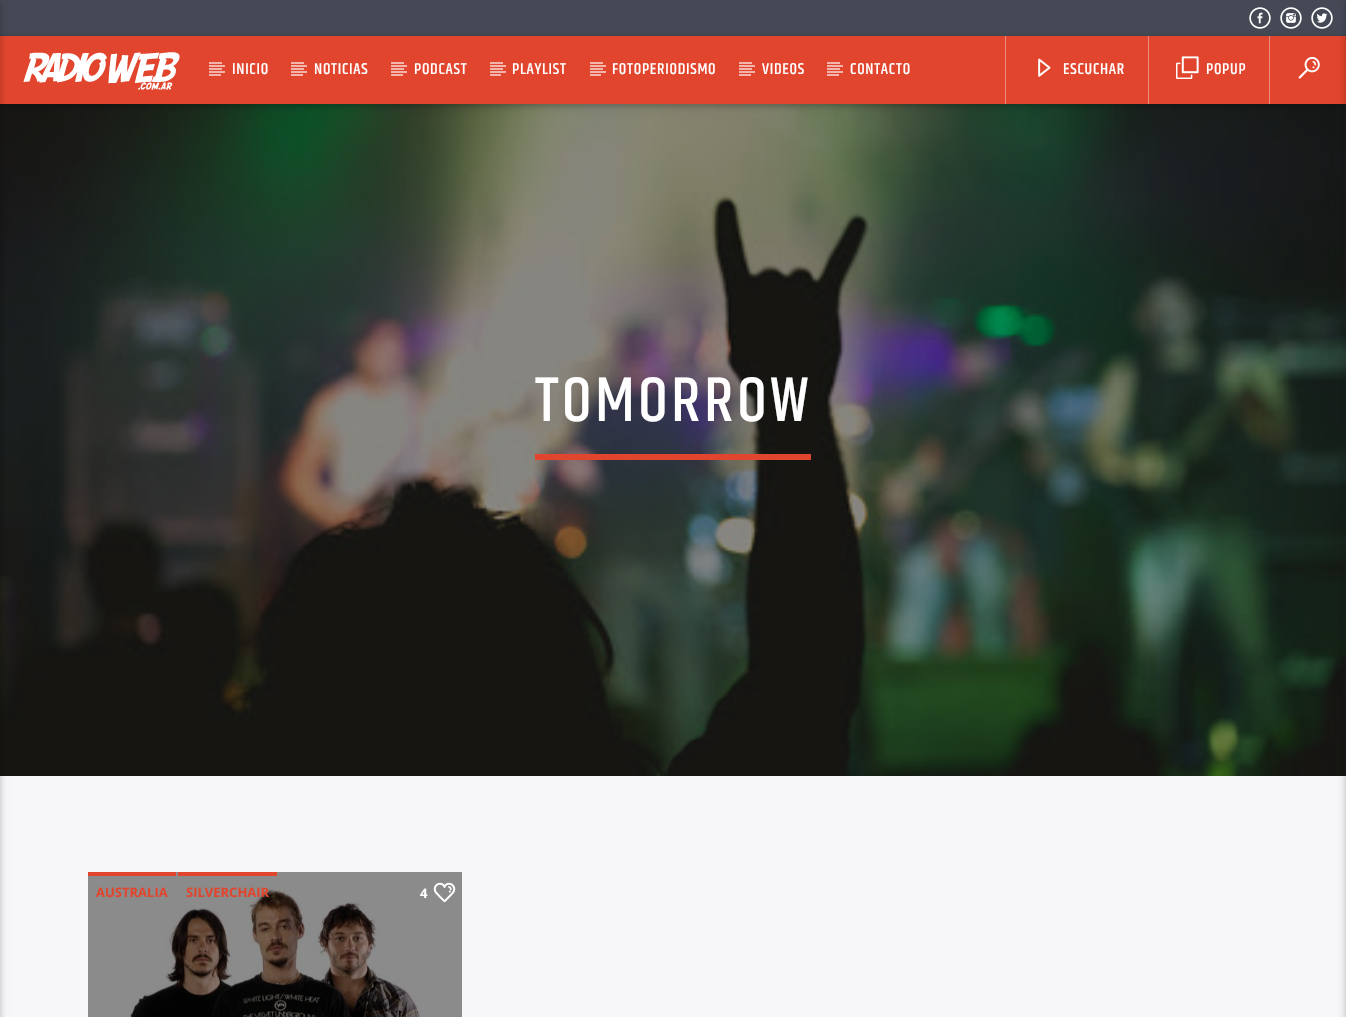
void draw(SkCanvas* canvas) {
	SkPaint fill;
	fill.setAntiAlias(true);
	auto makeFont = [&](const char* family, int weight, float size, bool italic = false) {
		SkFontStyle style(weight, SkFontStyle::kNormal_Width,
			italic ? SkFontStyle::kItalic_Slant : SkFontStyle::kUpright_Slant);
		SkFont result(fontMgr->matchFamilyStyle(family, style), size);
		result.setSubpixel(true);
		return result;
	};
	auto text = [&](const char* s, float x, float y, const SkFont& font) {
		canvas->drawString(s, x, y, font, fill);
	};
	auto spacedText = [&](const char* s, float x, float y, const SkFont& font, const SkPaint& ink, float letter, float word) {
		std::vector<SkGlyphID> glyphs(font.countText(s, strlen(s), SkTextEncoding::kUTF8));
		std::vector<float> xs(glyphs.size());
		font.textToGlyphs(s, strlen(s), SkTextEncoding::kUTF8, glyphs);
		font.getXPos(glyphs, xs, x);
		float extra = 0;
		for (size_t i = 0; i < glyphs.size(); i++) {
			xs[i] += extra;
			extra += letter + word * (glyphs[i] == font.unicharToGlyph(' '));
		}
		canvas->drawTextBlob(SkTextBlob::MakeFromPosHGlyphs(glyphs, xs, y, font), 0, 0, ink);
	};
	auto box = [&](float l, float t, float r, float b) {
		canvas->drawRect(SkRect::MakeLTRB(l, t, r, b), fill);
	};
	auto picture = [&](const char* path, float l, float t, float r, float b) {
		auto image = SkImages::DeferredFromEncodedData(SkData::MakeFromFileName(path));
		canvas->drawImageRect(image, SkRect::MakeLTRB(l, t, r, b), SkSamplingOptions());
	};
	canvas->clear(0xFFF7F7F9);
	fill.setColor(0xFF454955);
	box(0, 0, 1346, 36);
	picture("image0.png", 1249, 7, 1271, 29);
	picture("image1.png", 1280, 7, 1302, 29);
	picture("image2.png", 1311, 7, 1333, 29);
	fill.setColor(0xFF000000);
	box(0, 104, 1346, 776);
	picture("image7.png", 0, 104, 1346, 776);
	fill.setColor(0x1F000000);
	fill.setMaskFilter(SkMaskFilter::MakeBlur(kNormal_SkBlurStyle, 5));
	canvas->drawRect(SkRect::MakeLTRB(0, 38, 1346, 106), fill);
	fill.setMaskFilter(nullptr);
	fill.setColor(0x29000000);
	fill.setMaskFilter(SkMaskFilter::MakeBlur(kNormal_SkBlurStyle, 2.5f));
	canvas->drawRect(SkRect::MakeLTRB(0, 38, 1346, 106), fill);
	fill.setMaskFilter(nullptr);
	fill.setColor(0xFFE2452D);
	box(0, 36, 1346, 104);
	fill.setColor(0x1F000000);
	fill.setMaskFilter(SkMaskFilter::MakeBlur(kNormal_SkBlurStyle, 5));
	canvas->drawRect(SkRect::MakeLTRB(-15, 2, 0, 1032), fill);
	fill.setMaskFilter(nullptr);
	fill.setColor(0x29000000);
	fill.setMaskFilter(SkMaskFilter::MakeBlur(kNormal_SkBlurStyle, 2.5f));
	canvas->drawRect(SkRect::MakeLTRB(-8, 2, 0, 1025), fill);
	fill.setMaskFilter(nullptr);
	picture("image3.png", 23, 52, 180, 90);
	fill.setColor(0xFFF3B5AB);
	box(209, 74, 221, 76);
	box(209, 62, 222, 64);
	box(209, 68, 222, 70);
	box(209, 65, 225, 67);
	box(209, 71, 225, 73);
	box(291, 74, 303, 76);
	box(291, 62, 304, 64);
	box(291, 68, 304, 70);
	box(291, 65, 307, 67);
	box(291, 71, 307, 73);
	box(391, 74, 403, 76);
	box(391, 62, 404, 64);
	box(391, 68, 404, 70);
	box(391, 65, 407, 67);
	box(391, 71, 407, 73);
	box(490, 74, 501, 76);
	box(490, 62, 503, 64);
	box(490, 68, 503, 70);
	box(490, 65, 506, 67);
	box(490, 71, 506, 73);
	box(590, 74, 601, 76);
	box(590, 62, 603, 64);
	box(590, 68, 603, 70);
	box(590, 65, 606, 67);
	box(590, 71, 606, 73);
	box(739, 74, 751, 76);
	box(739, 62, 752, 64);
	box(739, 68, 752, 70);
	box(739, 65, 755, 67);
	box(739, 71, 755, 73);
	box(827, 74, 839, 76);
	box(827, 62, 840, 64);
	box(827, 68, 840, 70);
	box(827, 65, 843, 67);
	box(827, 71, 843, 73);
	fill.setColor(0xFFED8C7D);
	box(1005, 36, 1006, 104);
	picture("image4.png", 1038, 58, 1051, 77);
	box(1148, 36, 1149, 104);
	picture("image5.png", 1176, 56, 1199, 79);
	box(1269, 36, 1270, 104);
	picture("image6.png", 1298, 56, 1320, 79);
	fill.setColor(0x1F000000);
	fill.setMaskFilter(SkMaskFilter::MakeBlur(kNormal_SkBlurStyle, 5));
	canvas->drawRect(SkRect::MakeLTRB(1346, 2, 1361, 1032), fill);
	fill.setMaskFilter(nullptr);
	fill.setColor(0x29000000);
	fill.setMaskFilter(SkMaskFilter::MakeBlur(kNormal_SkBlurStyle, 2.5f));
	canvas->drawRect(SkRect::MakeLTRB(1346, 2, 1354, 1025), fill);
	fill.setMaskFilter(nullptr);
	fill.setColor(0xFFE2452D);
	box(535, 454, 811, 460);
	fill.setColor(0xFF000000);
	box(88, 872, 462, 1017);
	picture("image8.png", 88, 872, 462, 1017);
	fill.setColor(0xFFE2452D);
	box(88, 872, 176, 876);
	box(178, 872, 277, 876);
	picture("image9.png", 433, 882, 456, 903);
	auto font1 = makeFont("Khand", 500, 16);
	fill.setColor(0xFFFFFFFF);
	spacedText("INICIO", 232, 74, font1, fill, 0.75f, 0);
	spacedText("NOTICIAS", 314, 74, font1, fill, 0.75f, 0);
	spacedText("PODCAST", 414, 74, font1, fill, 0.75f, 0);
	spacedText("PLAYLIST", 512, 74, font1, fill, 0.75f, 0);
	spacedText("FOTOPERIODISMO", 612, 74, font1, fill, 0.75f, 0);
	spacedText("VIDEOS", 762, 74, font1, fill, 0.75f, 0);
	spacedText("CONTACTO", 850, 74, font1, fill, 0.75f, 0);
	spacedText("ESCUCHAR", 1063, 74, font1, fill, 0.75f, 0);
	spacedText("POPUP", 1206, 74, font1, fill, 0.75f, 0);
	auto font2 = makeFont("Khand", 500, 64);
	spacedText("TOMORROW", 535, 421, font2, fill, 3.25f, 0);
	auto font3 = makeFont("Open Sans", 700, 13);
	fill.setColor(0xFFE2452D);
	text("AUSTRALIA", 96, 897, font3);
	text("SILVERCHAIR", 186, 897, font3);
	fill.setColor(0xFFFFFFFF);
	text("4", 420, 898, font3);
}
